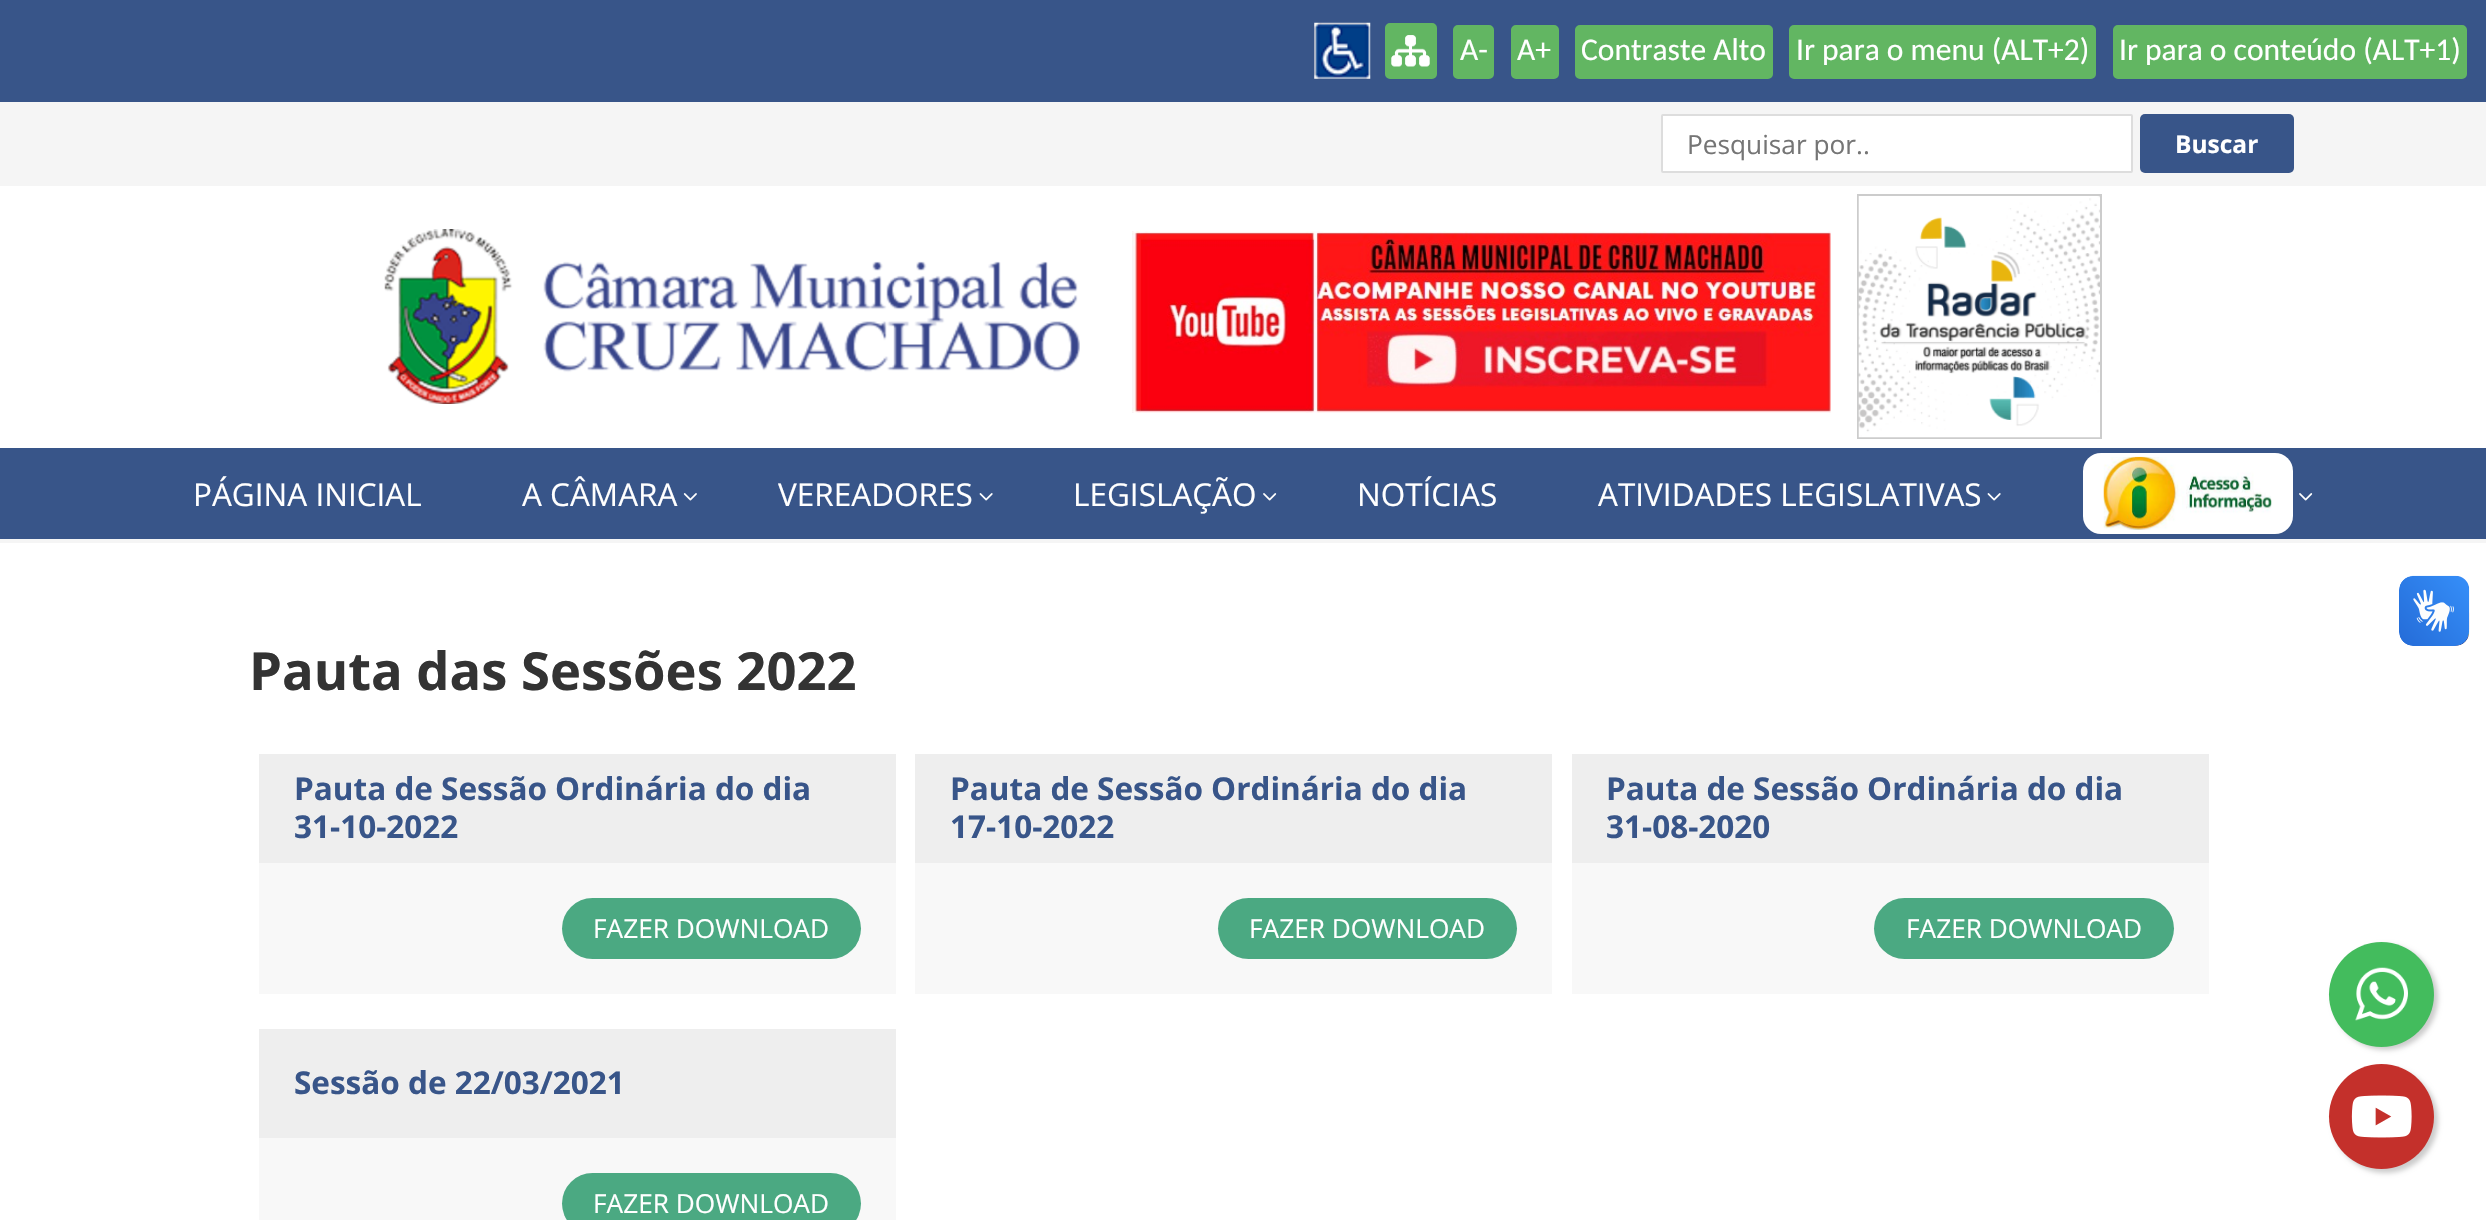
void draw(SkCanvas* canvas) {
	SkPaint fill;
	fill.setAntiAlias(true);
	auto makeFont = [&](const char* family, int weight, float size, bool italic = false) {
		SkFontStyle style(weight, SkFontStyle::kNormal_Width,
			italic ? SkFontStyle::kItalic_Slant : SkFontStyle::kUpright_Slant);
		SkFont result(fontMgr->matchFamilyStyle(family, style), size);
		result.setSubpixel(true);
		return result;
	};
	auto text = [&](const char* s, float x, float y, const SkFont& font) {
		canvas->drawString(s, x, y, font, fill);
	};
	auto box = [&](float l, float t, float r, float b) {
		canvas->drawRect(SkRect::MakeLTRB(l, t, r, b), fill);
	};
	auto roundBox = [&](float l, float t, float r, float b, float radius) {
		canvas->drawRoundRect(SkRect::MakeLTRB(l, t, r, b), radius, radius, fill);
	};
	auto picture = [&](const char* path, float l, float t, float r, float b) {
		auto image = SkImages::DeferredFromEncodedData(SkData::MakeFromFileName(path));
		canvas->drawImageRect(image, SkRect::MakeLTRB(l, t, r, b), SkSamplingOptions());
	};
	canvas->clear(0xFFFFFFFF);
	fill.setColor(0xFF385589);
	box(0, 0, 2486, 102);
	picture("image0.png", 1314, 22, 1371, 79);
	fill.setColor(0xFF62B662);
	canvas->drawRoundRect(SkRect::MakeLTRB(1384, 22, 1438, 80), 6, 6, fill);
	fill.setStyle(SkPaint::kStroke_Style);
	fill.setStrokeWidth(2);
	fill.setColor(0xFF385589);
	canvas->drawRoundRect(SkRect::MakeLTRB(1384, 22, 1438, 80), 6, 6, fill);
	picture("image1.png", 1391, 35, 1430, 67);
	fill.setStyle(SkPaint::kFill_Style);
	fill.setColor(0xFF62B662);
	canvas->drawRoundRect(SkRect::MakeLTRB(1452, 24, 1495, 80), 6, 6, fill);
	fill.setStyle(SkPaint::kStroke_Style);
	fill.setColor(0xFF385589);
	canvas->drawRoundRect(SkRect::MakeLTRB(1452, 24, 1495, 80), 6, 6, fill);
	fill.setStyle(SkPaint::kFill_Style);
	fill.setColor(0xFF62B662);
	canvas->drawRoundRect(SkRect::MakeLTRB(1510, 24, 1560, 80), 6, 6, fill);
	fill.setStyle(SkPaint::kStroke_Style);
	fill.setColor(0xFF385589);
	canvas->drawRoundRect(SkRect::MakeLTRB(1510, 24, 1560, 80), 6, 6, fill);
	fill.setStyle(SkPaint::kFill_Style);
	fill.setColor(0xFF62B662);
	canvas->drawRoundRect(SkRect::MakeLTRB(1574, 24, 1774, 80), 6, 6, fill);
	fill.setStyle(SkPaint::kStroke_Style);
	fill.setColor(0xFF385589);
	canvas->drawRoundRect(SkRect::MakeLTRB(1574, 24, 1774, 80), 6, 6, fill);
	fill.setStyle(SkPaint::kFill_Style);
	fill.setColor(0xFF62B662);
	canvas->drawRoundRect(SkRect::MakeLTRB(1788, 24, 2097, 80), 6, 6, fill);
	fill.setStyle(SkPaint::kStroke_Style);
	fill.setColor(0xFF385589);
	canvas->drawRoundRect(SkRect::MakeLTRB(1788, 24, 2097, 80), 6, 6, fill);
	fill.setStyle(SkPaint::kFill_Style);
	fill.setColor(0xFF62B662);
	canvas->drawRoundRect(SkRect::MakeLTRB(2112, 24, 2468, 80), 6, 6, fill);
	fill.setStyle(SkPaint::kStroke_Style);
	fill.setColor(0xFF385589);
	canvas->drawRoundRect(SkRect::MakeLTRB(2112, 24, 2468, 80), 6, 6, fill);
	fill.setStyle(SkPaint::kFill_Style);
	fill.setColor(0xFFF5F5F5);
	box(0, 102, 2486, 186);
	fill.setColor(0xFFFFFFFF);
	canvas->drawRoundRect(SkRect::MakeLTRB(1662, 115, 2132, 172), 1, 1, fill);
	fill.setStyle(SkPaint::kStroke_Style);
	fill.setColor(0xFFDDDDDD);
	canvas->drawRoundRect(SkRect::MakeLTRB(1662, 115, 2132, 172), 1, 1, fill);
	fill.setStyle(SkPaint::kFill_Style);
	fill.setColor(0xFF385589);
	roundBox(2140, 114, 2294, 173, 5);
	picture("image2.png", 384, 229, 1080, 404);
	picture("image3.png", 1132, 231, 1831, 413);
	fill.setStyle(SkPaint::kStroke_Style);
	fill.setColor(0xFFCCCCCC);
	canvas->drawRect(SkRect::MakeLTRB(1858, 195, 2101, 438), fill);
	picture("image4.png", 1858, 196, 2100, 438);
	fill.setStyle(SkPaint::kFill_Style);
	fill.setColor(0xFF385589);
	box(0, 448, 2486, 539);
	fill.setColor(0xFFF5F5F5);
	box(0, 539, 2486, 543);
	picture("image5.png", 683, 493, 697, 501);
	picture("image6.png", 979, 493, 993, 501);
	picture("image7.png", 1263, 493, 1277, 501);
	picture("image6.png", 1987, 493, 2001, 501);
	fill.setColor(0xFFFFFFFF);
	roundBox(2083, 453, 2293, 534, 18);
	picture("image8.png", 2103, 456, 2272, 530);
	picture("image7.png", 2299, 493, 2313, 501);
	fill.setColor(0xFFF8F8F8);
	box(259, 863, 896, 994);
	fill.setColor(0xFFEEEEEE);
	box(259, 754, 896, 863);
	fill.setColor(0xFF4BA982);
	roundBox(562, 898, 861, 959, 30.5f);
	fill.setColor(0xFFF8F8F8);
	box(915, 863, 1552, 994);
	fill.setColor(0xFFEEEEEE);
	box(915, 754, 1552, 863);
	fill.setColor(0xFF4BA982);
	roundBox(1218, 898, 1517, 959, 30.5f);
	fill.setColor(0xFFF8F8F8);
	box(1572, 863, 2209, 994);
	fill.setColor(0xFFEEEEEE);
	box(1572, 754, 2209, 863);
	fill.setColor(0xFF4BA982);
	roundBox(1874, 898, 2174, 959, 30.5f);
	fill.setColor(0xFFF8F8F8);
	box(259, 1138, 896, 1220);
	fill.setColor(0xFFEEEEEE);
	box(259, 1029, 896, 1138);
	fill.setColor(0xFF4BA982);
	roundBox(562, 1173, 861, 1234, 30.5f);
	fill.setColor(0x33000000);
	fill.setMaskFilter(SkMaskFilter::MakeBlur(kNormal_SkBlurStyle, 2.5f));
	canvas->drawRoundRect(SkRect::MakeLTRB(2333, 945, 2438, 1050), 52.5f, 52.5f, fill);
	fill.setMaskFilter(nullptr);
	fill.setColor(0xFF43BC5D);
	canvas->drawCircle(2381.5f, 994.5f, 52.5f, fill);
	picture("image9.png", 2355, 967, 2408, 1021);
	fill.setColor(0x33000000);
	fill.setMaskFilter(SkMaskFilter::MakeBlur(kNormal_SkBlurStyle, 2.5f));
	canvas->drawRoundRect(SkRect::MakeLTRB(2333, 1068, 2438, 1173), 52.5f, 52.5f, fill);
	fill.setMaskFilter(nullptr);
	fill.setColor(0xFFC4302B);
	canvas->drawCircle(2381.5f, 1116.5f, 52.5f, fill);
	picture("image10.png", 2351, 1095, 2412, 1138);
	picture("image11.png", 2399, 575, 2470, 646);
	picture("image12.png", 2399, 576, 2469, 646);
	auto font1 = makeFont("Carlito", 400, 31.5f);
	fill.setColor(0xFFFFFFFF);
	text("A-", 1460, 60, font1);
	text("A+", 1517, 60, font1);
	text("Contraste Alto", 1581, 60, font1);
	text("Ir para o menu (ALT+2)", 1796, 60, font1);
	text("Ir para o conteúdo (ALT+1)", 2119, 60, font1);
	auto font2 = makeFont("Open Sans", 400, 26.25f);
	fill.setColor(0xFF757575);
	text("Pesquisar por..", 1687, 154, font2);
	auto font3 = makeFont("Open Sans", 700, 24.5f);
	fill.setColor(0xFFFFFFFF);
	text("Buscar", 2175, 153, font3);
	auto font4 = makeFont("Open Sans", 400, 31.5f);
	text("PÁGINA INICIAL", 193, 506, font4);
	text("A CÂMARA", 522, 506, font4);
	text("VEREADORES", 778, 506, font4);
	text("LEGISLAÇÃO", 1073, 506, font4);
	text("NOTÍCIAS", 1357, 506, font4);
	text("ATIVIDADES LEGISLATIVAS", 1598, 506, font4);
	auto font5 = makeFont("Open Sans", 700, 52.5f);
	fill.setColor(0xFF333333);
	text("Pauta das Sessões 2022", 249, 690, font5);
	auto font6 = makeFont("Open Sans", 700, 31.5f);
	fill.setColor(0xFF385589);
	text("Pauta de Sessão Ordinária do dia", 294, 800, font6);
	text("31-10-2022", 294, 838, font6);
	fill.setColor(0xFFFFFFFF);
	text("FAZER DOWNLOAD", 593, 938, font2);
	fill.setColor(0xFF385589);
	text("Pauta de Sessão Ordinária do dia", 950, 800, font6);
	text("17-10-2022", 950, 838, font6);
	fill.setColor(0xFFFFFFFF);
	text("FAZER DOWNLOAD", 1249, 938, font2);
	fill.setColor(0xFF385589);
	text("Pauta de Sessão Ordinária do dia", 1606, 800, font6);
	text("31-08-2020", 1606, 838, font6);
	fill.setColor(0xFFFFFFFF);
	text("FAZER DOWNLOAD", 1906, 938, font2);
	fill.setColor(0xFF385589);
	text("Sessão de 22/03/2021", 294, 1094, font6);
	fill.setColor(0xFFFFFFFF);
	text("FAZER DOWNLOAD", 593, 1213, font2);
}
